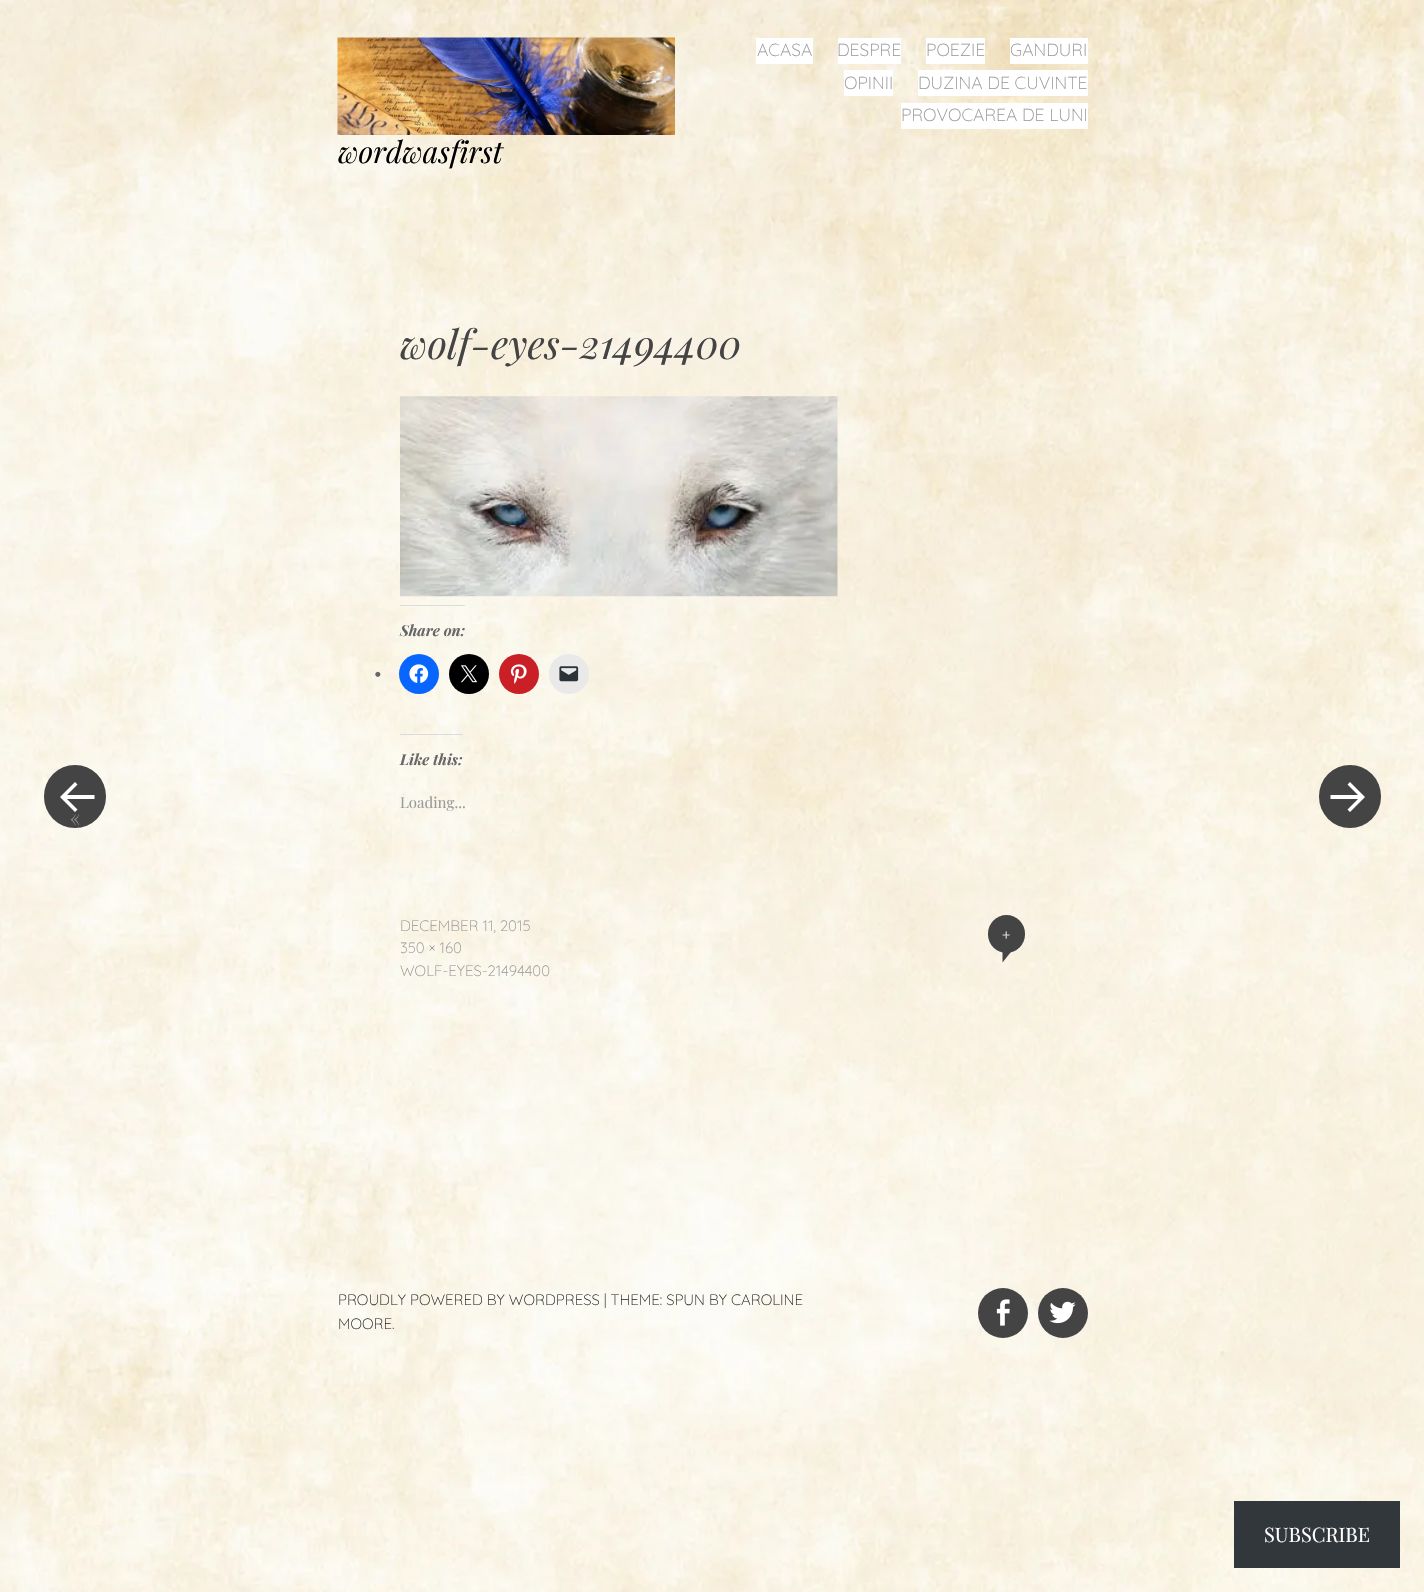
void draw(SkCanvas* canvas) {
	SkPaint fill;
	fill.setAntiAlias(true);
	auto makeFont = [&](const char* family, int weight, float size, bool italic = false) {
		SkFontStyle style(weight, SkFontStyle::kNormal_Width,
			italic ? SkFontStyle::kItalic_Slant : SkFontStyle::kUpright_Slant);
		SkFont result(fontMgr->matchFamilyStyle(family, style), size);
		result.setSubpixel(true);
		return result;
	};
	auto text = [&](const char* s, float x, float y, const SkFont& font) {
		canvas->drawString(s, x, y, font, fill);
	};
	auto box = [&](float l, float t, float r, float b) {
		canvas->drawRect(SkRect::MakeLTRB(l, t, r, b), fill);
	};
	auto roundBox = [&](float l, float t, float r, float b, float radius) {
		canvas->drawRoundRect(SkRect::MakeLTRB(l, t, r, b), radius, radius, fill);
	};
	auto picture = [&](const char* path, float l, float t, float r, float b) {
		auto image = SkImages::DeferredFromEncodedData(SkData::MakeFromFileName(path));
		canvas->drawImageRect(image, SkRect::MakeLTRB(l, t, r, b), SkSamplingOptions());
	};
	canvas->clear(0xFFFFFFFF);
	picture("image0.png", 0, 0, 1424, 1592);
	fill.setColor(0xFFFFFFFF);
	box(756, 38, 813, 64);
	box(838, 38, 901, 64);
	box(926, 38, 985, 64);
	box(1010, 38, 1088, 64);
	box(844, 70, 893, 96);
	box(918, 70, 1088, 96);
	box(901, 103, 1088, 129);
	picture("image1.png", 337, 37, 675, 135);
	fill.setColor(0xFF444444);
	roundBox(44, 765, 106, 828, 31);
	fill.setColor(0xFFFFFFFF);
	canvas->drawPath(SkPathBuilder().moveTo(60, 797).lineTo(75, 812).lineTo(77.5f, 809.5f).lineTo(67, 799).lineTo(94.5f, 799).lineTo(94.5f, 795).lineTo(67, 795).lineTo(77.5f, 784.5f).lineTo(75, 782).close().detach(), fill);
	fill.setColor(0xFF444444);
	roundBox(1319, 765, 1381, 828, 31);
	fill.setColor(0xFFFFFFFF);
	canvas->drawPath(SkPathBuilder().moveTo(1365, 797).lineTo(1350, 812).lineTo(1347.5f, 809.5f).lineTo(1358, 799).lineTo(1330.5f, 799).lineTo(1330.5f, 795).lineTo(1358, 795).lineTo(1347.5f, 784.5f).lineTo(1350, 782).close().detach(), fill);
	picture("image2.png", 400, 396, 838, 597);
	fill.setColor(0xFFDCDCDE);
	box(400, 605, 465, 606);
	fill.setColor(0xFF0866FF);
	canvas->drawCircle(419, 674, 20, fill);
	picture("image3.png", 409, 664, 429, 683);
	fill.setColor(0xFF000000);
	canvas->drawCircle(469, 674, 20, fill);
	picture("image4.png", 460, 665, 478, 683);
	fill.setColor(0xFFCA1F27);
	canvas->drawCircle(519, 674, 20, fill);
	picture("image5.png", 510, 664, 527, 684);
	fill.setColor(0xFFE9E9E9);
	canvas->drawCircle(569, 674, 20, fill);
	picture("image6.png", 559, 666, 579, 682);
	fill.setColor(0xFFDCDCDE);
	box(400, 734, 463, 735);
	fill.setColor(0xFF444444);
	canvas->drawPath(SkPathBuilder().moveTo(1002.5f, 950).lineTo(1012.5f, 950).lineTo(1002.5f, 962.5f).close().detach(), fill);
	roundBox(988, 915, 1025, 953, 18.5f);
	canvas->drawCircle(1003, 1313, 25, fill);
	picture("image7.png", 996, 1299, 1010, 1326);
	canvas->drawCircle(1063, 1313, 25, fill);
	picture("image8.png", 1049, 1301, 1076, 1324);
	fill.setColor(0xFF32373C);
	box(1234, 1501, 1400, 1568);
	auto font1 = makeFont("Quicksand", 300, 17.5f);
	fill.setColor(0xFF999999);
	text("ACASA", 757, 56, font1);
	text("DESPRE", 837, 56, font1);
	text("POEZIE", 926, 56, font1);
	text("GANDURI", 1010, 56, font1);
	text("OPINII", 844, 89, font1);
	text("DUZINA DE CUVINTE", 918, 89, font1);
	text("PROVOCAREA DE LUNI", 901, 121, font1);
	auto font2 = makeFont("Playfair Display", 400, 30, true);
	fill.setColor(0xFF000000);
	text("wordwasfirst", 338, 163, font2);
	auto font3 = makeFont("Playfair Display", 400, 20);
	fill.setColor(0xFF999999);
	text("«", 70, 825, font3);
	auto font4 = makeFont("Playfair Display", 400, 40, true);
	fill.setColor(0xFF444444);
	text("wolf-eyes-21494400", 400, 359, font4);
	auto font5 = makeFont("Playfair Display", 700, 15, true);
	fill.setColor(0xFF666666);
	text("Share on:", 400, 636, font5);
	auto font6 = makeFont("Playfair Display", 400, 17.5f);
	text("•", 374, 679, font6);
	text("Like this:", 400, 765, font5);
	auto font7 = makeFont("Playfair Display", 400, 15);
	fill.setColor(0xFF999999);
	text("Loading...", 400, 808, font7);
	auto font8 = makeFont("Quicksand", 300, 15);
	text("DECEMBER 11, 2015", 400, 931, font8);
	fill.setColor(0xFFFFFFFF);
	text("+", 1002, 940, font8);
	fill.setColor(0xFF999999);
	text("350 × 160", 400, 953, font8);
	text("WOLF-EYES-21494400", 400, 976, font8);
	fill.setColor(0xFF333333);
	text("PROUDLY POWERED BY WORDPRESS | THEME: SPUN BY CAROLINE", 338, 1305, font8);
	text("MOORE.", 338, 1329, font8);
	fill.setColor(0xFFFFFFFF);
	text("SUBSCRIBE", 1264, 1542, font3);
}
